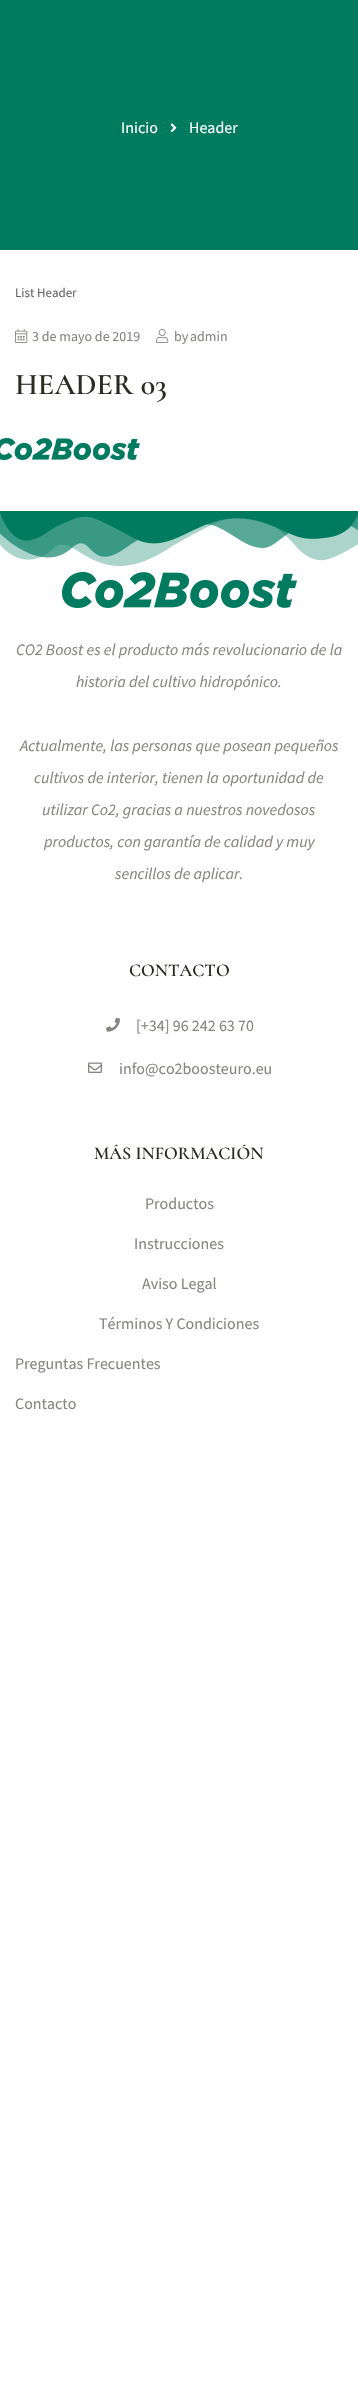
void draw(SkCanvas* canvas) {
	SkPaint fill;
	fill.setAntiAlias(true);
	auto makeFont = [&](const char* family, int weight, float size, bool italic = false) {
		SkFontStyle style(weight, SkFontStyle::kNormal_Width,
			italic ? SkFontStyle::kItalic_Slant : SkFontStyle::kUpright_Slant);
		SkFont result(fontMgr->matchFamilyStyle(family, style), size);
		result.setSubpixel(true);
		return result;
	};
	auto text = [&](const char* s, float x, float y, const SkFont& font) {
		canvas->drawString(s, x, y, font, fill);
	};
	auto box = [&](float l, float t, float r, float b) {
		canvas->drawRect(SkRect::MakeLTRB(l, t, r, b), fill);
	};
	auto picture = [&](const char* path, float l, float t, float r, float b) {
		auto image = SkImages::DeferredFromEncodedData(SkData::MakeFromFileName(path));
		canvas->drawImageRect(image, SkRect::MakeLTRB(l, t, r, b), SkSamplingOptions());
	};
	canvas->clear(0xFFFFFFFF);
	fill.setColor(0xFF007B60);
	box(0, 0, 358, 250);
	picture("image0.png", 170, 123, 177, 133);
	picture("image1.png", 15, 329, 28, 343);
	picture("image2.png", 156, 329, 169, 343);
	picture("image3.png", 0, 438, 140, 460);
	picture("image4.png", 0, 511, 358, 566);
	picture("image5.png", 62, 572, 297, 608);
	picture("image6.png", 106, 1017, 120, 1032);
	picture("image7.png", 88, 1062, 102, 1073);
	auto font1 = makeFont("Source Sans Pro", 400, 16);
	fill.setColor(0xFFFFFFFF);
	text("Inicio", 121, 133, font1);
	text("Header", 189, 133, font1);
	auto font2 = makeFont("Source Sans Pro", 400, 13);
	fill.setColor(0xFF666666);
	text("List Header", 15, 297, font2);
	auto font3 = makeFont("Source Sans Pro", 400, 14);
	fill.setColor(0xFF878581);
	text("3 de mayo de 2019", 32, 341, font3);
	text("by", 174, 341, font3);
	text("admin", 190, 341, font3);
	auto font4 = makeFont("Cormorant", 600, 30);
	fill.setColor(0xFF2D2A24);
	text("HEADER 03", 15, 394, font4);
	auto font5 = makeFont("Source Sans Pro", 400, 16, true);
	fill.setColor(0xFF878581);
	text("CO2 Boost es el producto más revolucionario de la", 16, 655, font5);
	text("historia del cultivo hidropónico.", 76, 687, font5);
	text("Actualmente, las personas que posean pequeños", 20, 751, font5);
	text("cultivos de interior, tienen la oportunidad de", 34, 783, font5);
	text("utilizar Co2, gracias a nuestros novedosos", 42, 815, font5);
	text("productos, con garantía de calidad y muy", 44, 847, font5);
	text("sencillos de aplicar.", 115, 879, font5);
	auto font6 = makeFont("Cormorant", 600, 18);
	fill.setColor(0xFF2D2A24);
	text("CONTACTO", 129, 976, font6);
	fill.setColor(0xFF878581);
	text("[+34] 96 242 63 70", 136, 1031, font1);
	text("info@co2boosteuro.eu", 119, 1074, font1);
	fill.setColor(0xFF2D2A24);
	text("MÁS INFORMACIÓN", 94, 1159, font6);
	fill.setColor(0xFF878581);
	text("Productos", 145, 1209, font1);
	text("Instrucciones", 134, 1249, font1);
	text("Aviso Legal", 142, 1289, font1);
	text("Términos Y Condiciones", 99, 1329, font1);
	text("Preguntas Frecuentes", 15, 1369, font1);
	text("Contacto", 15, 1409, font1);
}
